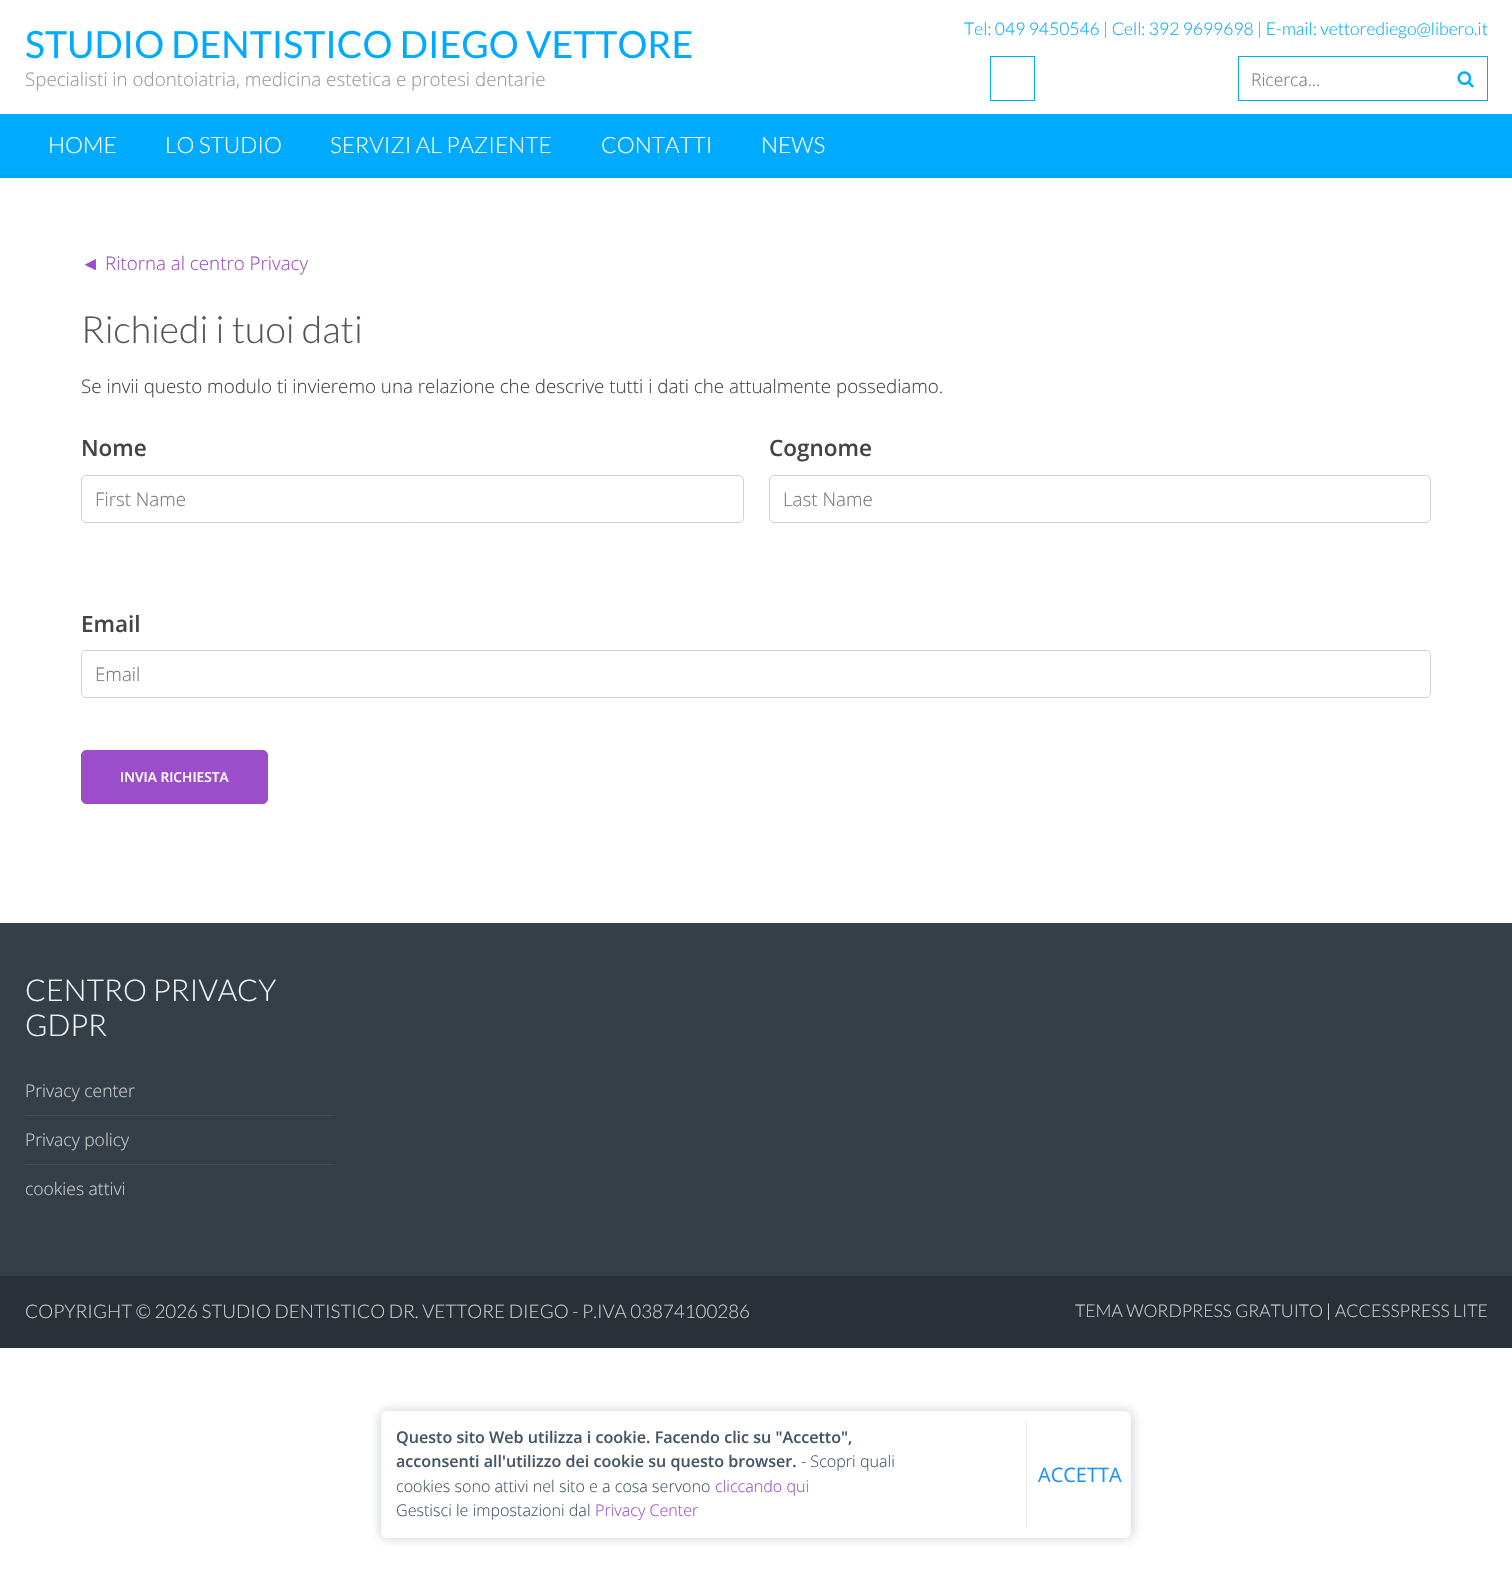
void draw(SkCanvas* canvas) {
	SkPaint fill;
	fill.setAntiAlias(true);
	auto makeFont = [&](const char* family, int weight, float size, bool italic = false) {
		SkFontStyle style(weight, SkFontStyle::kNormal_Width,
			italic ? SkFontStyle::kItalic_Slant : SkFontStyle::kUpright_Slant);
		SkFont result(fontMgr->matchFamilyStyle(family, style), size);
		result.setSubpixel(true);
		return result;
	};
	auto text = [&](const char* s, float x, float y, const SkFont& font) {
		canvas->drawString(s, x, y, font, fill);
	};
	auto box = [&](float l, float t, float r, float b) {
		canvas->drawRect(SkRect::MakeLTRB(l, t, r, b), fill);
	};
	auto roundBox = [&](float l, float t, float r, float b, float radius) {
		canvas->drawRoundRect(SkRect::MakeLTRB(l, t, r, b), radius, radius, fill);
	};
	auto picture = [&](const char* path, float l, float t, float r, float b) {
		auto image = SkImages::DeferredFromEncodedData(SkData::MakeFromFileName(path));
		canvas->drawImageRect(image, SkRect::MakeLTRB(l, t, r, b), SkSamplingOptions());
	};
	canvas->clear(0xFFFFFFFF);
	fill.setStyle(SkPaint::kStroke_Style);
	fill.setStrokeWidth(1);
	fill.setColor(0xFF01AEFD);
	canvas->drawRect(SkRect::MakeLTRB(990.5f, 56.5f, 1034.5f, 100.5f), fill);
	canvas->drawRect(SkRect::MakeLTRB(1238.5f, 56.5f, 1487.5f, 100.5f), fill);
	picture("image0.png", 1457, 71, 1474, 88);
	fill.setStyle(SkPaint::kFill_Style);
	fill.setColor(0xFF00ABFF);
	box(0, 114, 1512, 174);
	fill.setColor(0xFF04A3ED);
	box(0, 174, 1512, 178);
	fill.setStyle(SkPaint::kStroke_Style);
	fill.setColor(0xFFD1D1D1);
	canvas->drawRoundRect(SkRect::MakeLTRB(81.5f, 475.5f, 743.5f, 522.5f), 4.5f, 4.5f, fill);
	canvas->drawRoundRect(SkRect::MakeLTRB(769.5f, 475.5f, 1430.5f, 522.5f), 4.5f, 4.5f, fill);
	canvas->drawRoundRect(SkRect::MakeLTRB(81.5f, 650.5f, 1430.5f, 697.5f), 4.5f, 4.5f, fill);
	fill.setStyle(SkPaint::kFill_Style);
	fill.setColor(0xFF9B4DCA);
	canvas->drawRoundRect(SkRect::MakeLTRB(81.5f, 750.5f, 267.5f, 803.5f), 4.5f, 4.5f, fill);
	fill.setStyle(SkPaint::kStroke_Style);
	canvas->drawRoundRect(SkRect::MakeLTRB(81.5f, 750.5f, 267.5f, 803.5f), 4.5f, 4.5f, fill);
	fill.setStyle(SkPaint::kFill_Style);
	fill.setColor(0xFF353F47);
	box(0, 923, 1512, 1276);
	fill.setColor(0xFF454D54);
	box(25, 1115, 335, 1116);
	box(25, 1164, 335, 1165);
	fill.setColor(0xFF293037);
	box(0, 1276, 1512, 1348);
	fill.setColor(0x33142850);
	fill.setMaskFilter(SkMaskFilter::MakeBlur(kNormal_SkBlurStyle, 5.5f));
	canvas->drawRoundRect(SkRect::MakeLTRB(380, 1410, 1133, 1539), 8, 8, fill);
	fill.setMaskFilter(nullptr);
	fill.setColor(0xFFFFFFFF);
	roundBox(381, 1411, 1131, 1538, 6);
	fill.setColor(0xFFE6EAEE);
	box(1026, 1421, 1027, 1528);
	auto font1 = makeFont("Lato", 400, 37.5f);
	fill.setColor(0xFF00ABFF);
	text("STUDIO DENTISTICO DIEGO VETTORE", 25, 58, font1);
	auto font2 = makeFont("Open Sans", 300, 18.75f);
	fill.setColor(0xFF999999);
	text("Specialisti in odontoiatria, medicina estetica e protesi dentarie", 25, 86, font2);
	auto font3 = makeFont("Lato", 300, 17.5f);
	fill.setColor(0xFF00ABFF);
	text("Tel: 049 9450546 | Cell: 392 9699698 | E-mail: vettorediego@libero.it", 964, 35, font3);
	auto font4 = makeFont("Open Sans", 300, 17.5f);
	fill.setColor(0xFF757575);
	text("Ricerca...", 1251, 86, font4);
	auto font5 = makeFont("Lato", 300, 22.5f);
	fill.setColor(0xFFFFFFFF);
	text("HOME", 48, 153, font5);
	text("LO STUDIO", 165, 153, font5);
	text("SERVIZI AL PAZIENTE", 330, 153, font5);
	text("CONTATTI", 601, 153, font5);
	text("NEWS", 761, 153, font5);
	auto font6 = makeFont("Liberation Sans", 400, 18.75f);
	fill.setColor(0xFF9B4DCA);
	text("◄", 81, 270, font6);
	text("Ritorna al centro Privacy", 105, 270, font2);
	auto font7 = makeFont("Lato", 300, 37.5f);
	fill.setColor(0xFF555555);
	text("Richiedi i tuoi dati", 81, 343, font7);
	fill.setColor(0xFF444444);
	text("Se invii questo modulo ti invieremo una relazione che descrive tutti i dati che attualmente possediamo.", 81, 393, font2);
	auto font8 = makeFont("Open Sans", 600, 22.5f);
	text("Nome", 81, 456, font8);
	fill.setColor(0xFF757575);
	text("First Name", 95, 506, font2);
	fill.setColor(0xFF444444);
	text("Cognome", 769, 456, font8);
	fill.setColor(0xFF757575);
	text("Last Name", 783, 506, font2);
	fill.setColor(0xFF444444);
	text("Email", 81, 632, font8);
	fill.setColor(0xFF757575);
	text("Email", 95, 681, font2);
	auto font9 = makeFont("Open Sans", 600, 13.75f);
	fill.setColor(0xFFFFFFFF);
	text("INVIA RICHIESTA", 120, 782, font9);
	auto font10 = makeFont("Lato", 300, 30);
	fill.setColor(0xFFF2F3F4);
	text("CENTRO PRIVACY", 25, 1001, font10);
	text("GDPR", 25, 1036, font10);
	fill.setColor(0xFFCCCCCC);
	text("Privacy center", 25, 1097, font4);
	text("Privacy policy", 25, 1146, font4);
	text("cookies attivi", 25, 1195, font4);
	auto font11 = makeFont("Lato", 300, 18.75f);
	text("COPYRIGHT © 2026 STUDIO DENTISTICO DR. VETTORE DIEGO - P.IVA 03874100286", 25, 1318, font11);
	text("TEMA WORDPRESS GRATUITO", 1075, 1317, font3);
	fill.setColor(0xFFFFFFFF);
	text("|", 1326, 1317, font3);
	fill.setColor(0xFFCCCCCC);
	text("ACCESSPRESS LITE", 1335, 1317, font3);
	auto font12 = makeFont("Open Sans", 600, 16.1f);
	fill.setColor(0xFF445566);
	text("Questo sito Web utilizza i cookie. Facendo clic su \"Accetto\",", 396, 1443, font12);
	text("acconsenti all'utilizzo dei cookie su questo browser.", 396, 1467, font12);
	auto font13 = makeFont("Open Sans", 300, 16.1f);
	text("- Scopri quali", 801, 1467, font13);
	text("cookies sono attivi nel sito e a cosa servono", 396, 1492, font13);
	fill.setColor(0xFF9B4DCA);
	text("cliccando qui", 715, 1492, font13);
	fill.setColor(0xFF445566);
	text("Gestisci le impostazioni dal", 396, 1516, font13);
	fill.setColor(0xFF9B4DCA);
	text("Privacy Center", 595, 1516, font13);
	auto font14 = makeFont("Open Sans", 400, 20);
	fill.setColor(0xFF1E90FF);
	text("ACCETTA", 1038, 1482, font14);
}
